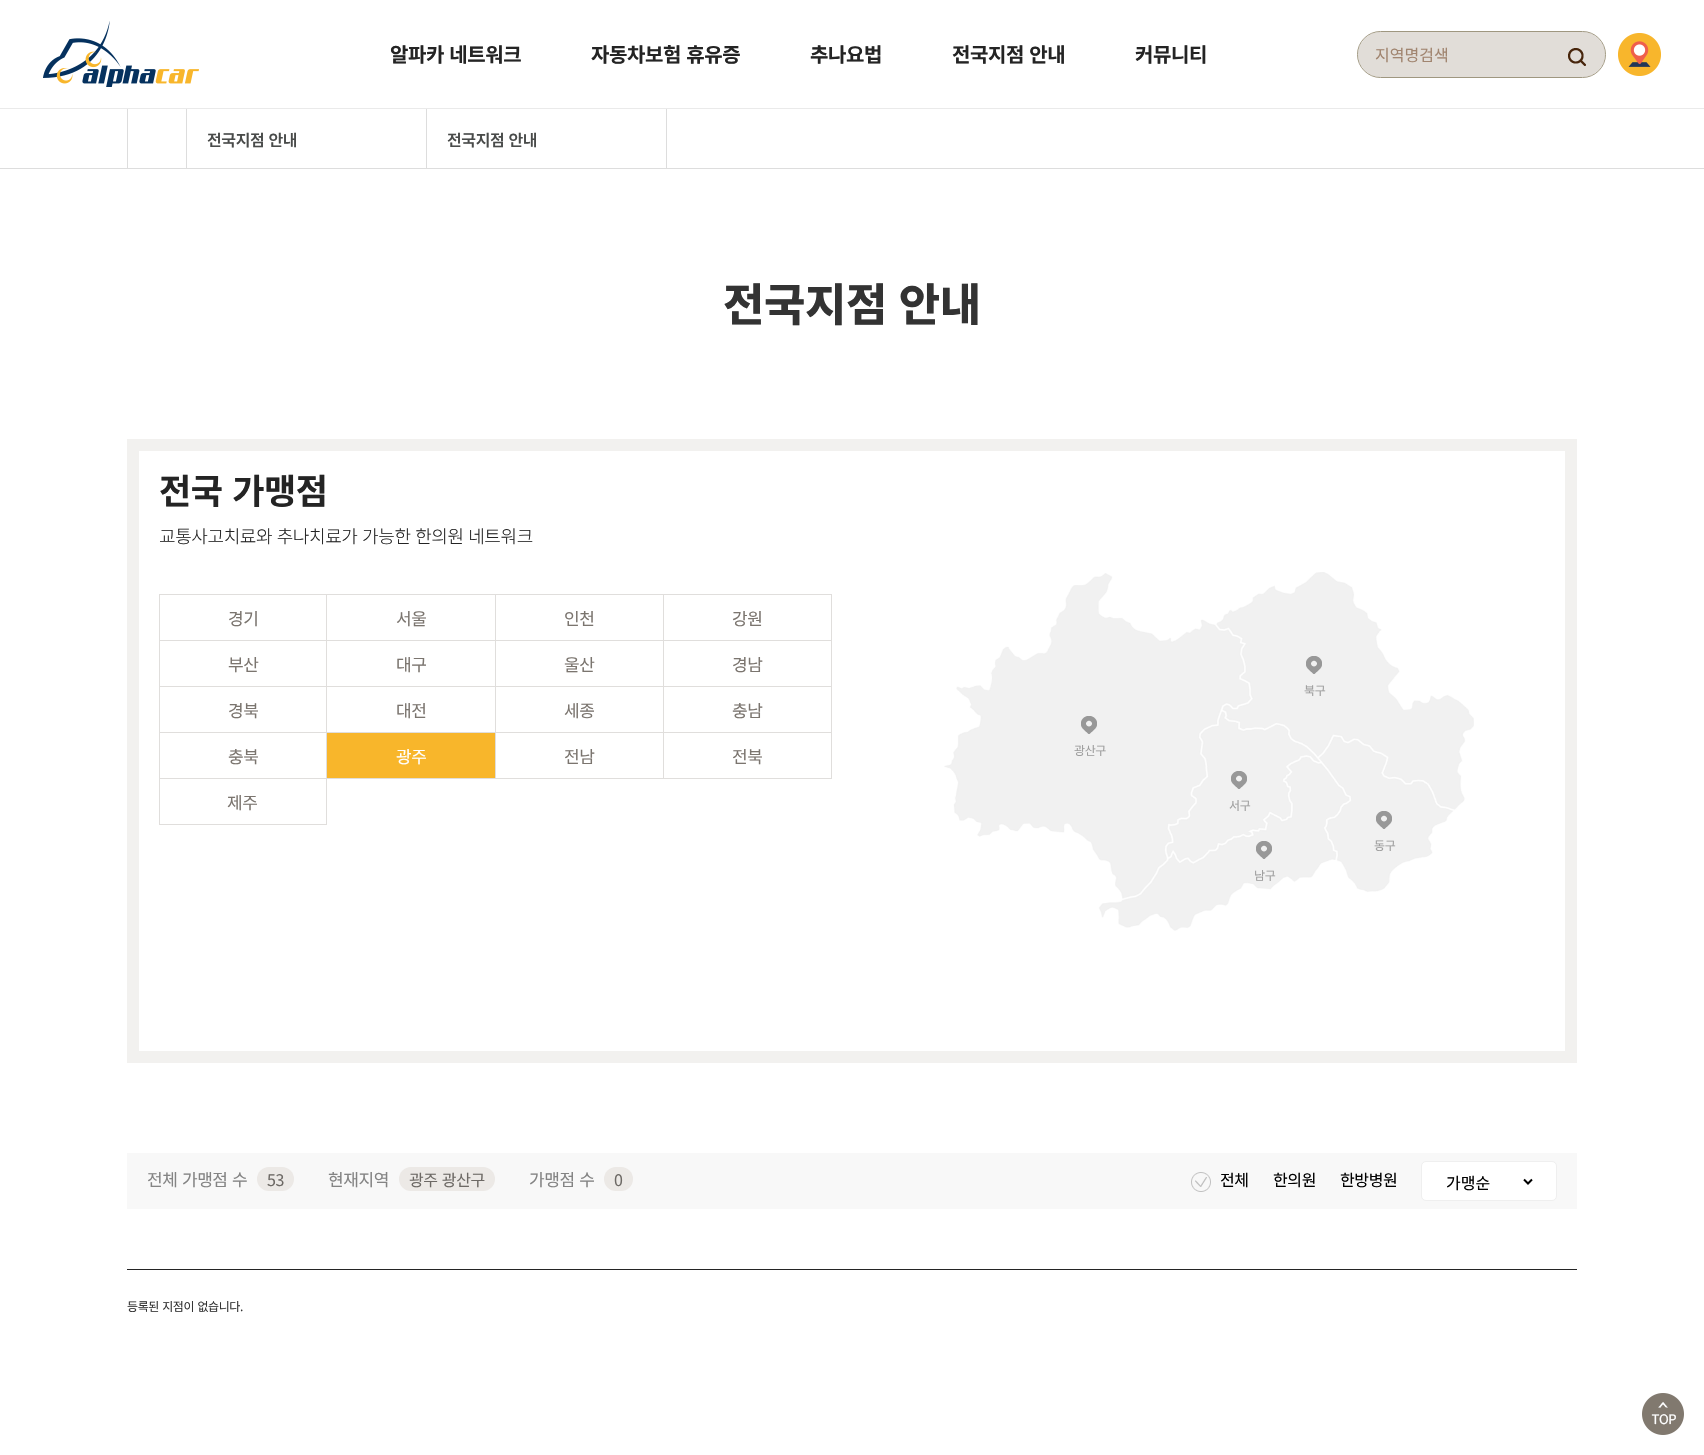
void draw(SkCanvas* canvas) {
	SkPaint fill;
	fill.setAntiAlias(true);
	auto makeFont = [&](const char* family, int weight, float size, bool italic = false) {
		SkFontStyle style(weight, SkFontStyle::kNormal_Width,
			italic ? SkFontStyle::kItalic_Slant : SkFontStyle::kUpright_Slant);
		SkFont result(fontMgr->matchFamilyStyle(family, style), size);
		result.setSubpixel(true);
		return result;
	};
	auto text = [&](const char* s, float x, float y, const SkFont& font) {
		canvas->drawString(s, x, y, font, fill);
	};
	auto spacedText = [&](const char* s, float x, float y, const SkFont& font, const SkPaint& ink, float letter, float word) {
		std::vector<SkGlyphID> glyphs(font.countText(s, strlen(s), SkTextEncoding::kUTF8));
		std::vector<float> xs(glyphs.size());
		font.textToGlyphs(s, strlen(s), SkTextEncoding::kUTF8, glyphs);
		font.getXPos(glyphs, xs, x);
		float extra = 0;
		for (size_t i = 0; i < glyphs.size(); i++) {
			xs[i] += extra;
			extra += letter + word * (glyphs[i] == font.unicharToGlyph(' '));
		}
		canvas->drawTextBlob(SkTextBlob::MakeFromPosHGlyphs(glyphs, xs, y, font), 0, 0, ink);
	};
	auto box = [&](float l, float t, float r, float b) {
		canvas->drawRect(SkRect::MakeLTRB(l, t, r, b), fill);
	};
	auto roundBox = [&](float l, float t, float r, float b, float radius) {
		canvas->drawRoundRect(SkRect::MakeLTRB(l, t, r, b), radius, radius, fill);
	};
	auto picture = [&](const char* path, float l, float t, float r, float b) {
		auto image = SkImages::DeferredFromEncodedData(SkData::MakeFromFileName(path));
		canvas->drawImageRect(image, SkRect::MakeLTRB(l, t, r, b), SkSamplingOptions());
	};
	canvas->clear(0xFFFFFFFF);
	fill.setColor(0xFFEAEAEA);
	box(0, 108, 1704, 109);
	picture("image0.png", 43, 21, 199, 87);
	fill.setStyle(SkPaint::kStroke_Style);
	fill.setStrokeWidth(1);
	fill.setColor(0xFF9F9780);
	canvas->drawRoundRect(SkRect::MakeLTRB(1357.5f, 31.5f, 1605.5f, 77.5f), 23, 23, fill);
	fill.setStyle(SkPaint::kFill_Style);
	fill.setColor(0x80C3BCB1);
	canvas->drawPath(SkPathBuilder().moveTo(1380.5f, 32).lineTo(1549, 32).lineTo(1549, 77).lineTo(1380.5f, 77).cubicTo(1368, 77, 1358, 67, 1358, 54.5f).cubicTo(1358, 42, 1368, 32, 1380.5f, 32).close().detach(), fill);
	canvas->drawPath(SkPathBuilder().moveTo(1549, 32).lineTo(1582.5f, 32).cubicTo(1595, 32, 1605, 42, 1605, 54.5f).cubicTo(1605, 67, 1595, 77, 1582.5f, 77).lineTo(1549, 77).close().detach(), fill);
	picture("image1.png", 1568, 48, 1586, 66);
	picture("image2.png", 1618, 33, 1661, 76);
	fill.setColor(0xFFDDDDDD);
	box(186, 109, 187, 169);
	box(127, 109, 128, 169);
	box(426, 109, 427, 169);
	box(666, 109, 667, 169);
	box(0, 168, 1704, 169);
	fill.setStyle(SkPaint::kStroke_Style);
	fill.setStrokeWidth(12);
	fill.setColor(0xFFF2F1EF);
	canvas->drawRect(SkRect::MakeLTRB(133, 445, 1571, 1057), fill);
	fill.setStrokeWidth(1);
	fill.setColor(0xFFE0DEDC);
	canvas->drawRect(SkRect::MakeLTRB(159.5f, 594.5f, 326.5f, 640.5f), fill);
	fill.setStyle(SkPaint::kFill_Style);
	box(327, 594, 832, 595);
	box(495, 594, 496, 779);
	box(327, 640, 496, 641);
	box(663, 594, 664, 779);
	box(496, 640, 664, 641);
	box(831, 594, 832, 779);
	box(664, 640, 832, 641);
	box(326, 641, 327, 825);
	box(159, 686, 832, 687);
	box(159, 641, 160, 687);
	box(159, 732, 832, 733);
	box(159, 687, 160, 733);
	box(159, 778, 832, 779);
	box(159, 733, 160, 779);
	fill.setColor(0xFFF8B62B);
	box(327, 733, 495, 778);
	fill.setColor(0xFFE0DEDC);
	box(159, 824, 327, 825);
	box(159, 779, 160, 825);
	picture("image3.png", 944, 572, 1474, 931);
	picture("image4.png", 1306, 656, 1322, 674);
	picture("image4.png", 1081, 716, 1097, 734);
	picture("image4.png", 1231, 771, 1247, 789);
	picture("image4.png", 1376, 811, 1392, 829);
	picture("image4.png", 1256, 841, 1272, 859);
	fill.setColor(0xFFF8F8F8);
	box(127, 1153, 1577, 1209);
	fill.setColor(0xFFECE9E6);
	roundBox(257, 1167, 294, 1191, 12);
	roundBox(399, 1167, 495, 1191, 12);
	roundBox(604, 1167, 633, 1191, 12);
	picture("image5.png", 1191, 1172, 1211, 1192);
	fill.setColor(0xFFFFFFFF);
	canvas->drawRoundRect(SkRect::MakeLTRB(1421.5f, 1161.5f, 1556.5f, 1200.5f), 4.5f, 4.5f, fill);
	fill.setStyle(SkPaint::kStroke_Style);
	fill.setColor(0xFFEFEFEF);
	canvas->drawRoundRect(SkRect::MakeLTRB(1421.5f, 1161.5f, 1556.5f, 1200.5f), 4.5f, 4.5f, fill);
	fill.setStrokeWidth(2);
	fill.setColor(0xFF000000);
	canvas->drawPath(SkPathBuilder().moveTo(1524, 1179.5f).lineTo(1528, 1183.5f).lineTo(1532, 1179.5f).detach(), fill);
	fill.setStyle(SkPaint::kFill_Style);
	fill.setColor(0xFF242424);
	box(127, 1269, 1577, 1270);
	picture("image6.png", 1642, 1393, 1684, 1435);
	auto font1 = makeFont("Noto Sans KR", 700, 20);
	spacedText("알파카 네트워크", 390, 62, font1, fill, -0.4f, 1);
	spacedText("자동차보험 휴유증", 591, 62, font1, fill, -0.4f, 1);
	spacedText("추나요법", 810, 62, font1, fill, -0.4f, 0);
	spacedText("전국지점 안내", 952, 62, font1, fill, -0.4f, 1);
	spacedText("커뮤니티", 1135, 62, font1, fill, -0.4f, 0);
	auto font2 = makeFont("Noto Sans KR", 400, 16);
	fill.setColor(0xFFA18570);
	text("지역명검색", 1375, 61, font2);
	auto font3 = makeFont("Noto Sans KR", 600, 16);
	fill.setColor(0xFF494B4A);
	spacedText("전국지점 안내", 207, 146, font3, fill, -0.4f, 1);
	spacedText("전국지점 안내", 447, 146, font3, fill, -0.4f, 1);
	auto font4 = makeFont("Noto Sans KR", 800, 45);
	fill.setColor(0xFF333333);
	spacedText("전국지점 안내", 723, 321, font4, fill, -0.4f, 2);
	auto font5 = makeFont("Noto Sans KR", 700, 35);
	fill.setColor(0xFF242424);
	spacedText("전국 가맹점", 159, 504, font5, fill, -0.4f, 2);
	auto font6 = makeFont("Noto Sans KR", 300, 18);
	spacedText("교통사고치료와 추나치료가 가능한 한의원 네트워크", 159, 543, font6, fill, -0.4f, 1);
	auto font7 = makeFont("Noto Sans KR", 400, 17);
	fill.setColor(0xFF7B756F);
	spacedText("경기", 228, 625, font7, fill, -0.4f, 0);
	spacedText("서울", 396, 625, font7, fill, -0.4f, 0);
	spacedText("인천", 564, 625, font7, fill, -0.4f, 0);
	spacedText("강원", 732, 625, font7, fill, -0.4f, 0);
	spacedText("부산", 228, 671, font7, fill, -0.4f, 0);
	spacedText("대구", 396, 671, font7, fill, -0.4f, 0);
	spacedText("울산", 564, 671, font7, fill, -0.4f, 0);
	spacedText("경남", 732, 671, font7, fill, -0.4f, 0);
	spacedText("경북", 228, 717, font7, fill, -0.4f, 0);
	spacedText("대전", 396, 717, font7, fill, -0.4f, 0);
	spacedText("세종", 564, 717, font7, fill, -0.4f, 0);
	spacedText("충남", 732, 717, font7, fill, -0.4f, 0);
	spacedText("충북", 228, 763, font7, fill, -0.4f, 0);
	fill.setColor(0xFFFFFFFF);
	spacedText("광주", 396, 763, font7, fill, -0.4f, 0);
	fill.setColor(0xFF7B756F);
	spacedText("전남", 564, 763, font7, fill, -0.4f, 0);
	spacedText("전북", 732, 763, font7, fill, -0.4f, 0);
	spacedText("제주", 227, 809, font7, fill, -0.4f, 0);
	auto font8 = makeFont("Noto Sans KR", 400, 12);
	fill.setColor(0xFF9E9E9E);
	spacedText("북구", 1304, 695, font8, fill, -0.4f, 0);
	spacedText("광산구", 1074, 755, font8, fill, -0.4f, 0);
	spacedText("서구", 1229, 810, font8, fill, -0.4f, 0);
	spacedText("동구", 1374, 850, font8, fill, -0.4f, 0);
	spacedText("남구", 1254, 880, font8, fill, -0.4f, 0);
	fill.setColor(0xFF848484);
	spacedText("전체 가맹점 수", 147, 1186, font7, fill, -0.4f, 1);
	fill.setColor(0xFF6D6965);
	spacedText("53", 267, 1186, font2, fill, -0.4f, 0);
	fill.setColor(0xFF848484);
	spacedText("현재지역", 328, 1186, font7, fill, -0.4f, 0);
	fill.setColor(0xFF6D6965);
	spacedText("광주 광산구", 409, 1186, font2, fill, -0.4f, 1);
	fill.setColor(0xFF848484);
	spacedText("가맹점 수", 529, 1186, font7, fill, -0.4f, 1);
	fill.setColor(0xFF6D6965);
	spacedText("0", 614, 1186, font2, fill, -0.4f, 0);
	fill.setColor(0xFF000000);
	spacedText("전체", 1220, 1186, font2, fill, -0.4f, 0);
	spacedText("한의원", 1273, 1186, font2, fill, -0.4f, 0);
	spacedText("한방병원", 1340, 1186, font2, fill, -0.4f, 0);
	text("가맹순", 1446, 1189, font2);
	fill.setColor(0xFF333333);
	spacedText("등록된 지점이 없습니다.", 127, 1311, font8, fill, -0.4f, 1);
}
